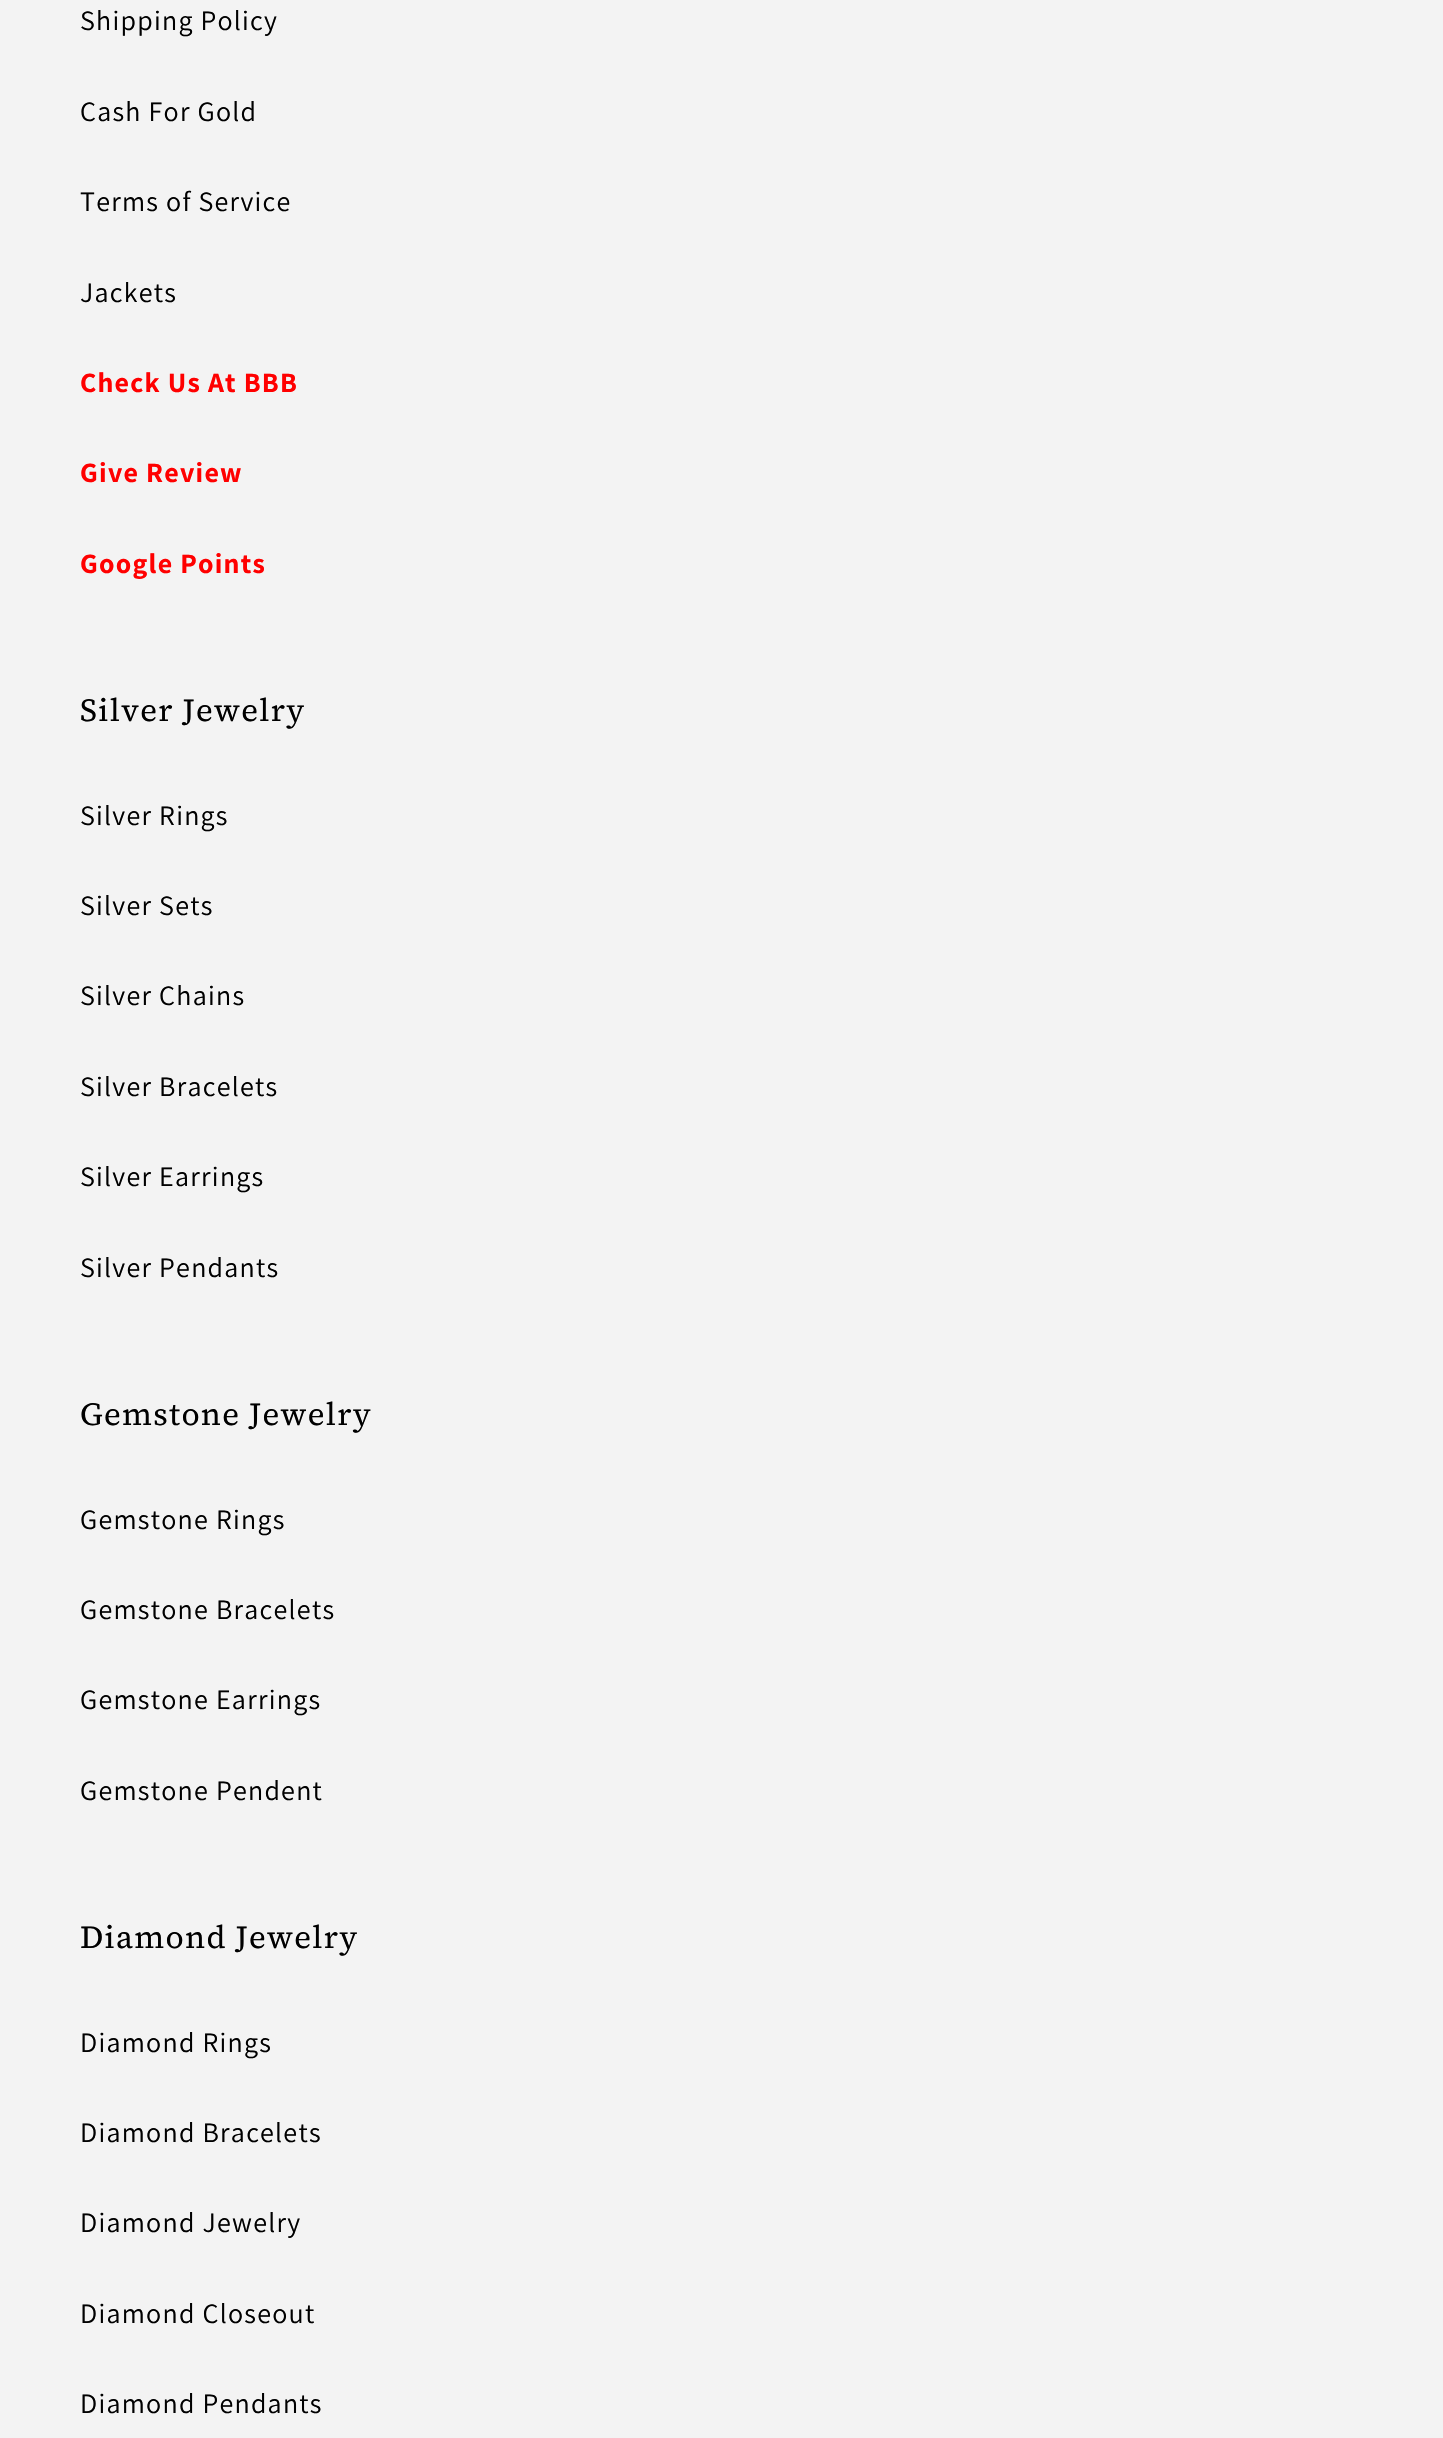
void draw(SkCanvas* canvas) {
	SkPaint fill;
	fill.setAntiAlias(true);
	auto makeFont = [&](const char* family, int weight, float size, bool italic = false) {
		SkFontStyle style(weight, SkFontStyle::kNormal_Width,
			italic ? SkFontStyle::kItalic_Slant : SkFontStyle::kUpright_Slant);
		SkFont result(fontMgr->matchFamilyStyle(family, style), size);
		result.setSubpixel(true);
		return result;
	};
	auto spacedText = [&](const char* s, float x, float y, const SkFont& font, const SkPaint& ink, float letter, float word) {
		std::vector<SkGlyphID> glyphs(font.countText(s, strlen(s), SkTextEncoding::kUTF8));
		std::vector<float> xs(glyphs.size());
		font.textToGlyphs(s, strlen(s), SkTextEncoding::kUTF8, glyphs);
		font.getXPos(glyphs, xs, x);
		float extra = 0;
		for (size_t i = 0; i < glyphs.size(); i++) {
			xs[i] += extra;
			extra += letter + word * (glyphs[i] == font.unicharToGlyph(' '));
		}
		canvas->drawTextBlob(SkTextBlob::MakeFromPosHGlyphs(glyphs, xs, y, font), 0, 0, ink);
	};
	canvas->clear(0xFFF3F3F3);
	auto font1 = makeFont("Assistant", 400, 28);
	fill.setColor(0xFF000000);
	spacedText("Shipping Policy", 80, 30, font1, fill, 1.25f, 0);
	spacedText("Cash For Gold", 80, 121, font1, fill, 1.25f, 0);
	spacedText("Terms of Service", 80, 211, font1, fill, 1.25f, 0);
	spacedText("Jackets", 80, 302, font1, fill, 1.25f, 0);
	auto font2 = makeFont("Assistant", 700, 28);
	fill.setColor(0xFFFF0000);
	spacedText("Check Us At BBB", 80, 392, font2, fill, 1.25f, 0);
	spacedText("Give Review", 80, 482, font2, fill, 1.25f, 0);
	spacedText("Google Points", 80, 573, font2, fill, 1.25f, 0);
	auto font3 = makeFont("Source Serif 4", 400, 32);
	fill.setColor(0xFF000000);
	spacedText("Silver Jewelry", 80, 721, font3, fill, 1.25f, 0);
	spacedText("Silver Rings", 80, 825, font1, fill, 1.25f, 0);
	spacedText("Silver Sets", 80, 915, font1, fill, 1.25f, 0);
	spacedText("Silver Chains", 80, 1005, font1, fill, 1.25f, 0);
	spacedText("Silver Bracelets", 80, 1096, font1, fill, 1.25f, 0);
	spacedText("Silver Earrings", 80, 1186, font1, fill, 1.25f, 0);
	spacedText("Silver Pendants", 80, 1277, font1, fill, 1.25f, 0);
	spacedText("Gemstone Jewelry", 80, 1425, font3, fill, 1.25f, 0);
	spacedText("Gemstone Rings", 80, 1529, font1, fill, 1.25f, 0);
	spacedText("Gemstone Bracelets", 80, 1619, font1, fill, 1.25f, 0);
	spacedText("Gemstone Earrings", 80, 1709, font1, fill, 1.25f, 0);
	spacedText("Gemstone Pendent", 80, 1800, font1, fill, 1.25f, 0);
	spacedText("Diamond Jewelry", 80, 1948, font3, fill, 1.25f, 0);
	spacedText("Diamond Rings", 80, 2052, font1, fill, 1.25f, 0);
	spacedText("Diamond Bracelets", 80, 2142, font1, fill, 1.25f, 0);
	spacedText("Diamond Jewelry", 80, 2232, font1, fill, 1.25f, 0);
	spacedText("Diamond Closeout", 80, 2323, font1, fill, 1.25f, 0);
	spacedText("Diamond Pendants", 80, 2413, font1, fill, 1.25f, 0);
}
